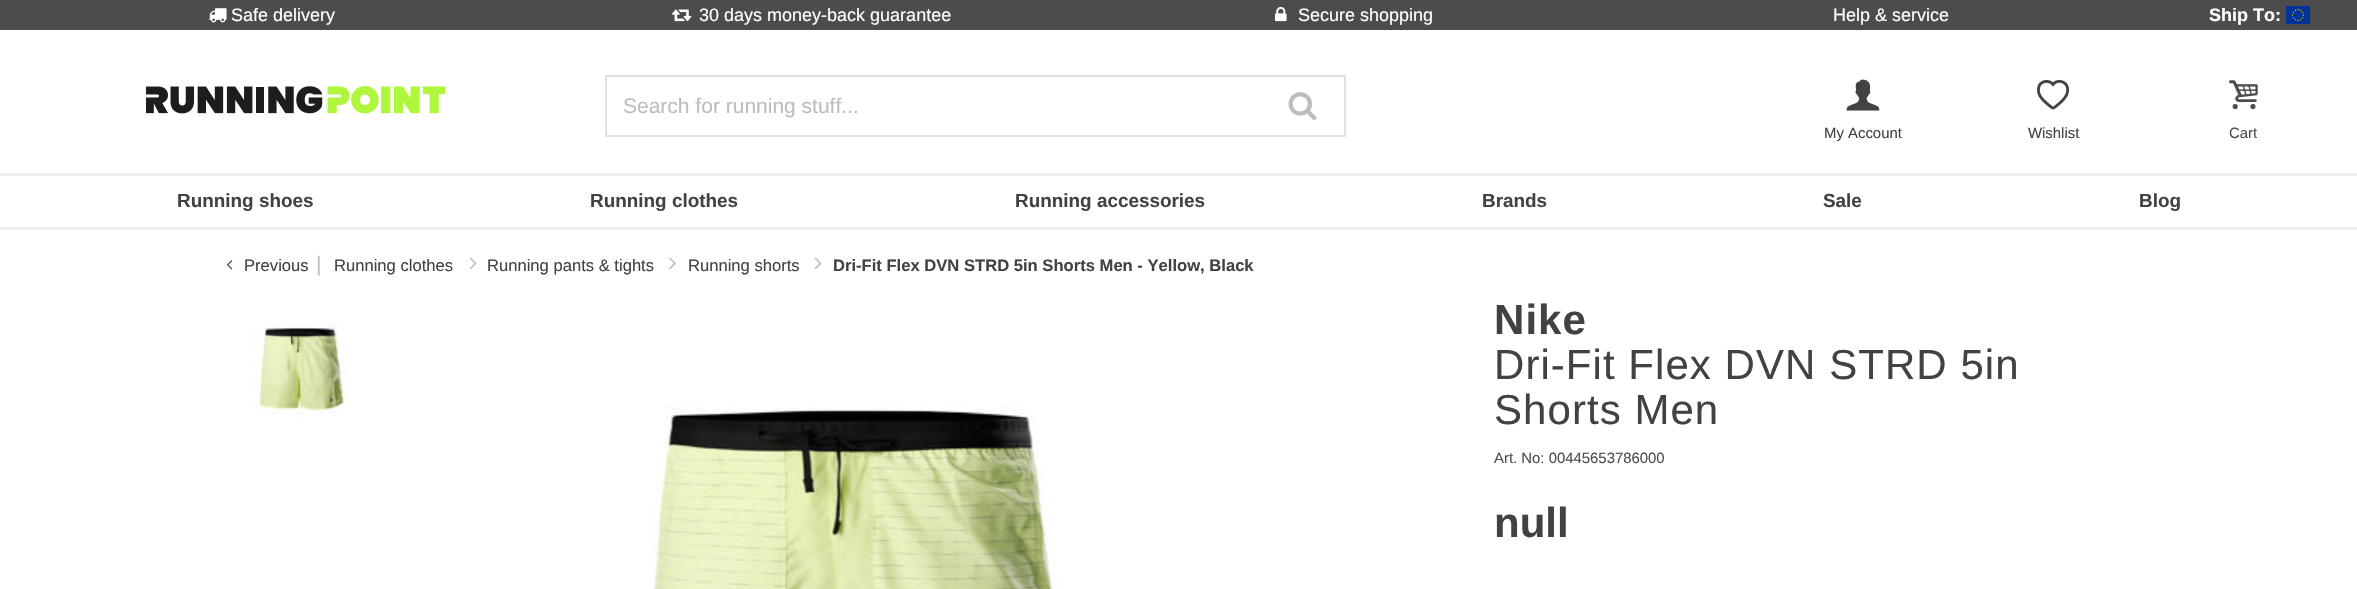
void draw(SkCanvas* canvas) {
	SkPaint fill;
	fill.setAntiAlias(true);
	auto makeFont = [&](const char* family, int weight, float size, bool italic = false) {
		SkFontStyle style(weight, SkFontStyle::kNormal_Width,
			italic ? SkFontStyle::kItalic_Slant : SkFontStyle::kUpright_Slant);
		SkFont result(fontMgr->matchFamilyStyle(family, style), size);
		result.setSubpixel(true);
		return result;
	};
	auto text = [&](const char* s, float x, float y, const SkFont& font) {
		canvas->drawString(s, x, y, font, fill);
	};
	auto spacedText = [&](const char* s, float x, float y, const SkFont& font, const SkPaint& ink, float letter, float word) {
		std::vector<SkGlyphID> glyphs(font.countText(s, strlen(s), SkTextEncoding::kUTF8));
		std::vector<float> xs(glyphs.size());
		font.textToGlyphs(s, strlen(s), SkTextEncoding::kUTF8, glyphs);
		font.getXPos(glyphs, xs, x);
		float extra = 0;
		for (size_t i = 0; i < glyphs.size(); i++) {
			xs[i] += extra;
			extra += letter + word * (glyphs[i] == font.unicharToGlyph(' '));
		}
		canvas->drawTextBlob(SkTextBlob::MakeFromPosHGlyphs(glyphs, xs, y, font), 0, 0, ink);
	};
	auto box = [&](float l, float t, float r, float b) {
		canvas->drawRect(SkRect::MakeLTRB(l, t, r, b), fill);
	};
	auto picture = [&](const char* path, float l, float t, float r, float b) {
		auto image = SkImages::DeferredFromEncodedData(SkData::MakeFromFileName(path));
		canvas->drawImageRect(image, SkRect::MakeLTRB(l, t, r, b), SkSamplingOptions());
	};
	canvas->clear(0xFFFFFFFF);
	fill.setColor(0xFF4C4C4C);
	box(0, 0, 2357, 30);
	picture("image0.png", 209, 8, 227, 23);
	picture("image1.png", 672, 9, 692, 22);
	picture("image2.png", 1275, 6, 1287, 22);
	picture("image3.png", 2286, 6, 2310, 24);
	picture("image4.png", 146, 86, 446, 114);
	fill.setStyle(SkPaint::kStroke_Style);
	fill.setStrokeWidth(2);
	fill.setColor(0xFFE0E0E0);
	canvas->drawRect(SkRect::MakeLTRB(606, 76, 1345, 136), fill);
	picture("image5.png", 1288, 92, 1317, 120);
	picture("image6.png", 1846, 79, 1880, 111);
	picture("image7.png", 2037, 79, 2069, 110);
	picture("image8.png", 2229, 80, 2258, 110);
	fill.setStyle(SkPaint::kFill_Style);
	fill.setColor(0xFFEEEEEE);
	box(0, 173, 2357, 176);
	box(0, 227, 2357, 230);
	picture("image9.png", 227, 260, 233, 270);
	picture("image10.png", 469, 257, 477, 270);
	picture("image11.png", 669, 257, 676, 270);
	picture("image10.png", 814, 257, 822, 270);
	picture("image12.png", 254, 322, 350, 417);
	picture("image13.png", 653, 405, 1058, 589);
	auto font1 = makeFont("Liberation Sans", 400, 18);
	fill.setColor(0xFFFFFFFF);
	text("Safe delivery", 231, 21, font1);
	text("30 days money-back guarantee", 699, 21, font1);
	text("Secure shopping", 1298, 21, font1);
	text("Help & service", 1833, 21, font1);
	auto font2 = makeFont("Liberation Sans", 700, 18);
	text("Ship To:", 2209, 21, font2);
	auto font3 = makeFont("Liberation Sans", 400, 21);
	fill.setColor(0xFFBDBDBD);
	text("Search for running stuff...", 623, 113, font3);
	auto font4 = makeFont("Liberation Sans", 400, 14.9f);
	fill.setColor(0xFF424242);
	text("My Account", 1824, 138, font4);
	text("Wishlist", 2028, 138, font4);
	fill.setColor(0xFF4C4C4C);
	text("Cart", 2229, 138, font4);
	auto font5 = makeFont("Liberation Sans", 700, 18.9f);
	fill.setColor(0xFF424242);
	text("Running shoes", 177, 207, font5);
	text("Running clothes", 590, 207, font5);
	text("Running accessories", 1015, 207, font5);
	text("Brands", 1482, 207, font5);
	text("Sale", 1823, 207, font5);
	text("Blog", 2139, 207, font5);
	auto font6 = makeFont("Liberation Sans", 400, 16.6f);
	text("Previous", 244, 271, font6);
	fill.setColor(0xFFBDBDBD);
	text("|", 316, 271, font3);
	fill.setColor(0xFF424242);
	text("Running clothes", 334, 271, font6);
	text("Running pants & tights", 487, 271, font6);
	text("Running shorts", 688, 271, font6);
	auto font7 = makeFont("Liberation Sans", 700, 16.6f);
	text("Dri-Fit Flex DVN STRD 5in Shorts Men - Yellow, Black", 833, 271, font7);
	auto font8 = makeFont("Liberation Sans", 700, 42);
	spacedText("Nike", 1494, 334, font8, fill, 1.05f, 0);
	auto font9 = makeFont("Liberation Sans", 400, 42);
	spacedText("Dri-Fit Flex DVN STRD 5in", 1494, 379, font9, fill, 1.05f, 0);
	spacedText("Shorts Men", 1494, 424, font9, fill, 1.05f, 0);
	fill.setColor(0xFF4C4C4C);
	text("Art. No: 00445653786000", 1494, 463, font4);
	fill.setColor(0xFF424242);
	text("null", 1494, 537, font8);
}
